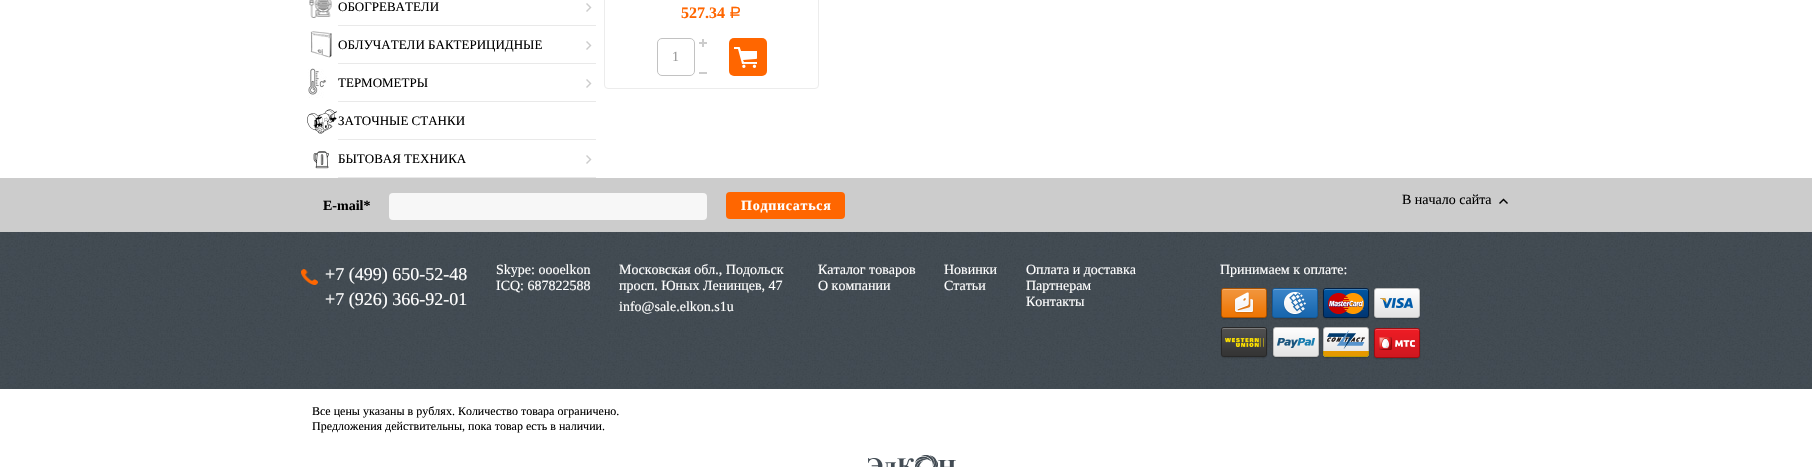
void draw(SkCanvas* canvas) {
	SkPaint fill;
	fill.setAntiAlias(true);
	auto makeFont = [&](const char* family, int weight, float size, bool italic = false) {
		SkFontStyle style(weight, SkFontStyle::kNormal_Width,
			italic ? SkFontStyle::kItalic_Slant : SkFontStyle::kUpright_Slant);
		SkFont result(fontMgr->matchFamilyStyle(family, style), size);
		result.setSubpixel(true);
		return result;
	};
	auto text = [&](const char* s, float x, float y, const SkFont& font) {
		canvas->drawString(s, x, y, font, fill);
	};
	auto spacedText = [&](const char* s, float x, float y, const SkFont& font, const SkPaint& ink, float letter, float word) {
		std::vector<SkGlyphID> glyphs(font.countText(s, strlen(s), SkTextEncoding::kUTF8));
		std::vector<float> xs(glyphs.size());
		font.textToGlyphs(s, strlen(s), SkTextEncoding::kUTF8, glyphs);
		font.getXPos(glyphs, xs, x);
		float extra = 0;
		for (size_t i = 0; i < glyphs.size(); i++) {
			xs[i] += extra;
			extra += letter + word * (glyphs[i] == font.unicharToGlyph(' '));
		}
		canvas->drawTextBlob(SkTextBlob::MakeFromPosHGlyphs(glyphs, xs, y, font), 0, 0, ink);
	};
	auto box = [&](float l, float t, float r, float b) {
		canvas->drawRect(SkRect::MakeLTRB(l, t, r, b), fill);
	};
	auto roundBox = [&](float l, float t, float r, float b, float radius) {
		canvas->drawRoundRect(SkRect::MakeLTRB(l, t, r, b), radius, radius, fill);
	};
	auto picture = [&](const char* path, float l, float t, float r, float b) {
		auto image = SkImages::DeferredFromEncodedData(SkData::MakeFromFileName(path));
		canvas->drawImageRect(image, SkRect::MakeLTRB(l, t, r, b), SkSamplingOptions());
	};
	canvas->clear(0xFFFFFFFF);
	fill.setColor(0xFFE9E9E9);
	box(338, 25, 596, 26);
	picture("image0.png", 309, 0, 332, 18);
	picture("image1.png", 586, 3, 592, 12);
	box(338, 63, 596, 64);
	picture("image2.png", 310, 31, 332, 58);
	picture("image1.png", 586, 41, 592, 50);
	box(338, 101, 596, 102);
	picture("image3.png", 308, 68, 327, 98);
	picture("image1.png", 586, 79, 592, 88);
	box(338, 139, 596, 140);
	picture("image4.png", 307, 109, 337, 134);
	box(338, 177, 596, 178);
	picture("image5.png", 313, 151, 329, 169);
	picture("image1.png", 586, 155, 592, 164);
	fill.setStyle(SkPaint::kStroke_Style);
	fill.setStrokeWidth(1);
	fill.setColor(0xFFECECEC);
	canvas->drawRoundRect(SkRect::MakeLTRB(604.5f, -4.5f, 818.5f, 88.5f), 3.5f, 3.5f, fill);
	picture("image6.png", 699, 39, 707, 47);
	fill.setColor(0xFFC2C2C2);
	canvas->drawRoundRect(SkRect::MakeLTRB(657.5f, 38.5f, 694.5f, 75.5f), 4.5f, 4.5f, fill);
	fill.setStyle(SkPaint::kFill_Style);
	fill.setColor(0xFFCCCCCC);
	box(699, 72, 707, 74);
	fill.setColor(0xFFFF6600);
	roundBox(729, 38, 767, 76, 5);
	picture("image7.png", 734, 47, 757, 68);
	fill.setColor(0xFFCCCCCC);
	box(0, 178, 1812, 232);
	fill.setColor(0xFFF7F7F7);
	roundBox(389, 193, 707, 220, 4);
	fill.setColor(0xFFFF6600);
	roundBox(726, 192, 845, 219, 4);
	picture("image8.png", 1499, 198, 1508, 204);
	picture("image9.png", 0, 232, 1812, 389);
	picture("image10.png", 301, 269, 318, 285);
	picture("image11.png", 1220, 288, 1421, 360);
	picture("image12.png", 868, 455, 956, 467);
	auto font1 = makeFont("Liberation Serif", 400, 13);
	fill.setColor(0xFF000000);
	text("ОБОГРЕВАТЕЛИ", 338, 11, font1);
	text("ОБЛУЧАТЕЛИ БАКТЕРИЦИДНЫЕ", 338, 49, font1);
	text("ТЕРМОМЕТРЫ", 338, 87, font1);
	text("ЗАТОЧНЫЕ СТАНКИ", 338, 125, font1);
	text("БЫТОВАЯ ТЕХНИКА", 338, 163, font1);
	auto font2 = makeFont("Liberation Serif", 700, 16);
	fill.setColor(0xFFFF6600);
	text("527.34", 681, 18, font2);
	auto font3 = makeFont("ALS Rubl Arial", 400, 16);
	text("Р", 729, 18, font3);
	auto font4 = makeFont("Liberation Serif", 400, 14);
	fill.setColor(0xFF999999);
	text("1", 672, 61, font4);
	auto font5 = makeFont("Liberation Serif", 700, 14);
	fill.setColor(0xFF000000);
	text("E-mail*", 323, 210, font5);
	fill.setColor(0xFFFFFFFF);
	spacedText("Подписаться", 741, 210, font5, fill, 0.75f, 0);
	fill.setColor(0xFF000000);
	text("В начало сайта", 1402, 204, font4);
	auto font6 = makeFont("Liberation Serif", 400, 18);
	fill.setColor(0xFFFFFFFF);
	text("+7 (499) 650-52-48", 325, 280, font6);
	text("+7 (926) 366-92-01", 325, 305, font6);
	text("Skype: oooelkon", 496, 274, font4);
	text("ICQ: 687822588", 496, 290, font4);
	text("Московская обл., Подольск", 619, 274, font4);
	text("просп. Юных Ленинцев, 47", 619, 290, font4);
	text("info@sale.elkon.s1u", 619, 311, font4);
	text("Каталог товаров", 818, 274, font4);
	text("О компании", 818, 290, font4);
	text("Новинки", 944, 274, font4);
	text("Статьи", 944, 290, font4);
	text("Оплата и доставка", 1026, 274, font4);
	text("Партнерам", 1026, 290, font4);
	text("Контакты", 1026, 306, font4);
	text("Принимаем к оплате:", 1220, 274, font4);
	auto font7 = makeFont("Liberation Serif", 400, 12);
	fill.setColor(0xFF000000);
	text("Все цены указаны в рублях. Количество товара ограничено.", 312, 415, font7);
	text("Предложения действительны, пока товар есть в наличии.", 312, 430, font7);
}
